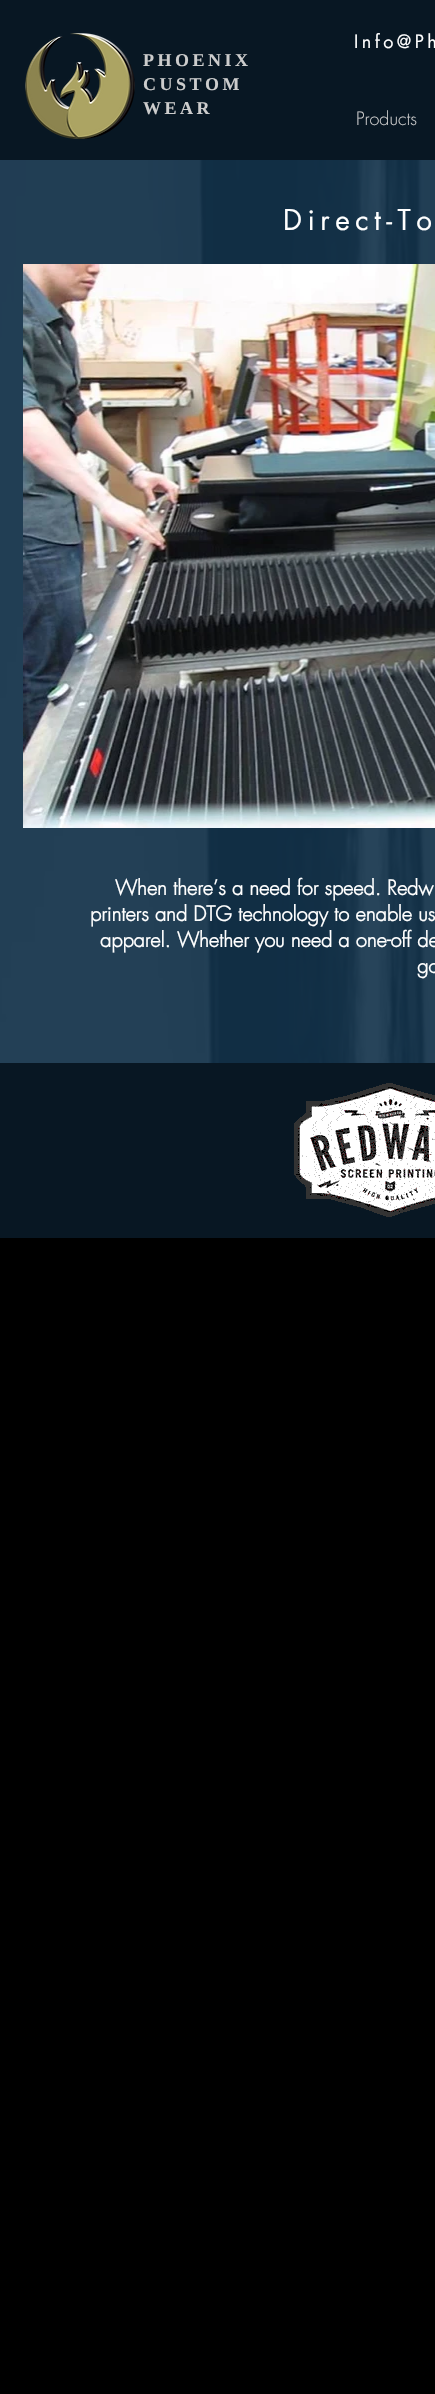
void draw(SkCanvas* canvas) {
	SkPaint fill;
	fill.setAntiAlias(true);
	auto makeFont = [&](const char* family, int weight, float size, bool italic = false) {
		SkFontStyle style(weight, SkFontStyle::kNormal_Width,
			italic ? SkFontStyle::kItalic_Slant : SkFontStyle::kUpright_Slant);
		SkFont result(fontMgr->matchFamilyStyle(family, style), size);
		result.setSubpixel(true);
		return result;
	};
	auto text = [&](const char* s, float x, float y, const SkFont& font) {
		canvas->drawString(s, x, y, font, fill);
	};
	auto spacedText = [&](const char* s, float x, float y, const SkFont& font, const SkPaint& ink, float letter, float word) {
		std::vector<SkGlyphID> glyphs(font.countText(s, strlen(s), SkTextEncoding::kUTF8));
		std::vector<float> xs(glyphs.size());
		font.textToGlyphs(s, strlen(s), SkTextEncoding::kUTF8, glyphs);
		font.getXPos(glyphs, xs, x);
		float extra = 0;
		for (size_t i = 0; i < glyphs.size(); i++) {
			xs[i] += extra;
			extra += letter + word * (glyphs[i] == font.unicharToGlyph(' '));
		}
		canvas->drawTextBlob(SkTextBlob::MakeFromPosHGlyphs(glyphs, xs, y, font), 0, 0, ink);
	};
	auto box = [&](float l, float t, float r, float b) {
		canvas->drawRect(SkRect::MakeLTRB(l, t, r, b), fill);
	};
	auto picture = [&](const char* path, float l, float t, float r, float b) {
		auto image = SkImages::DeferredFromEncodedData(SkData::MakeFromFileName(path));
		canvas->drawImageRect(image, SkRect::MakeLTRB(l, t, r, b), SkSamplingOptions());
	};
	canvas->clear(0xFF000000);
	fill.setColor(0xFF081723);
	box(0, 0, 435, 160);
	picture("image0.png", 25, 33, 135, 139);
	fill.setColor(0xFF0E2E47);
	box(0, 160, 435, 1063);
	picture("image1.png", 0, 160, 435, 1063);
	picture("image2.png", 23, 264, 435, 828);
	fill.setColor(0xFF081723);
	box(0, 1063, 435, 1238);
	picture("image3.png", 294, 1083, 435, 1217);
	auto font1 = makeFont("futura", 400, 18);
	fill.setColor(0xFFFFFFFF);
	spacedText("Info@Ph", 354, 48, font1, fill, 3.5f, 0);
	auto font2 = makeFont("Liberation Serif", 700, 18);
	fill.setColor(0xFFCCCCCC);
	spacedText("PHOENIX", 143, 66, font2, fill, 3.5f, 0);
	spacedText("CUSTOM", 143, 90, font2, fill, 3.5f, 0);
	spacedText("WEAR", 143, 114, font2, fill, 3.5f, 0);
	auto font3 = makeFont("futura", 300, 18);
	text("Products", 356, 125, font3);
	auto font4 = makeFont("futura", 400, 28);
	fill.setColor(0xFFFFFFFF);
	spacedText("Direct-To", 283, 230, font4, fill, 5.5f, 0);
	auto font5 = makeFont("futura", 700, 20);
	text("When there’s a need for speed. Redw", 115, 895, font5);
	text("printers and DTG technology to enable us", 90, 921, font5);
	text("apparel. Whether you need a one-off de", 100, 947, font5);
	text("go", 417, 973, font5);
}
